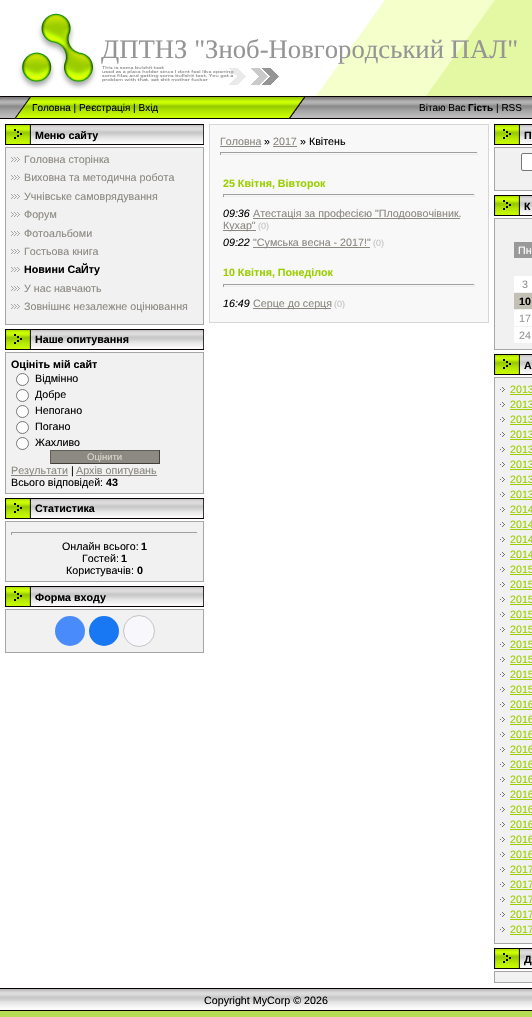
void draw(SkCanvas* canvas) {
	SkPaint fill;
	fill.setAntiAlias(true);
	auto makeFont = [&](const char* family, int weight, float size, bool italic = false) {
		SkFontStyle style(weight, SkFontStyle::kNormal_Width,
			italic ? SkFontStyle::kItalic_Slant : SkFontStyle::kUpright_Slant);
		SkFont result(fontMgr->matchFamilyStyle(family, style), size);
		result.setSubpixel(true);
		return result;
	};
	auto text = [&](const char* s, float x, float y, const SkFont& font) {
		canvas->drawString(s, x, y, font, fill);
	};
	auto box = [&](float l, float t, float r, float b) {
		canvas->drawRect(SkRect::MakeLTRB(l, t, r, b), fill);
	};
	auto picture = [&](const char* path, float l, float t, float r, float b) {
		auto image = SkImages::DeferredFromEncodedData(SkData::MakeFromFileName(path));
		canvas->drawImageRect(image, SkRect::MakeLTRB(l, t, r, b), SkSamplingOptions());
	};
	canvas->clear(0xFFFFFFFF);
	picture("image0.png", 305, 96, 532, 119);
	picture("image1.png", 0, 0, 101, 22);
	picture("image2.png", 101, 0, 532, 22);
	picture("image3.png", 0, 22, 101, 96);
	picture("image4.png", 101, 22, 532, 96);
	picture("image5.png", 0, 96, 32, 119);
	picture("image6.png", 32, 96, 281, 119);
	picture("image7.png", 281, 96, 305, 119);
	picture("image8.png", 5, 124, 204, 145);
	fill.setColor(0xFFF1F1F1);
	canvas->drawRect(SkRect::MakeLTRB(5.5f, 147.5f, 203.5f, 324.5f), fill);
	fill.setStyle(SkPaint::kStroke_Style);
	fill.setStrokeWidth(1);
	fill.setColor(0xFFA7A6A6);
	canvas->drawRect(SkRect::MakeLTRB(5.5f, 147.5f, 203.5f, 324.5f), fill);
	picture("image9.png", 11, 157, 20, 162);
	picture("image9.png", 11, 175, 20, 180);
	picture("image9.png", 11, 194, 20, 199);
	picture("image9.png", 11, 212, 20, 217);
	picture("image9.png", 11, 231, 20, 236);
	picture("image9.png", 11, 249, 20, 254);
	picture("image9.png", 11, 267, 20, 272);
	picture("image9.png", 11, 286, 20, 291);
	picture("image9.png", 11, 304, 20, 309);
	picture("image8.png", 5, 329, 204, 350);
	fill.setStyle(SkPaint::kFill_Style);
	fill.setColor(0xFFF1F1F1);
	canvas->drawRect(SkRect::MakeLTRB(5.5f, 352.5f, 203.5f, 493.5f), fill);
	fill.setStyle(SkPaint::kStroke_Style);
	fill.setColor(0xFFA7A6A6);
	canvas->drawRect(SkRect::MakeLTRB(5.5f, 352.5f, 203.5f, 493.5f), fill);
	fill.setStyle(SkPaint::kFill_Style);
	fill.setColor(0xFFFFFFFF);
	canvas->drawCircle(22.5f, 379.5f, 6, fill);
	fill.setStyle(SkPaint::kStroke_Style);
	fill.setColor(0xFF767676);
	canvas->drawCircle(22.5f, 379.5f, 6, fill);
	fill.setStyle(SkPaint::kFill_Style);
	fill.setColor(0xFFFFFFFF);
	canvas->drawCircle(22.5f, 395.5f, 6, fill);
	fill.setStyle(SkPaint::kStroke_Style);
	fill.setColor(0xFF767676);
	canvas->drawCircle(22.5f, 395.5f, 6, fill);
	fill.setStyle(SkPaint::kFill_Style);
	fill.setColor(0xFFFFFFFF);
	canvas->drawCircle(22.5f, 411.5f, 6, fill);
	fill.setStyle(SkPaint::kStroke_Style);
	fill.setColor(0xFF767676);
	canvas->drawCircle(22.5f, 411.5f, 6, fill);
	fill.setStyle(SkPaint::kFill_Style);
	fill.setColor(0xFFFFFFFF);
	canvas->drawCircle(22.5f, 427.5f, 6, fill);
	fill.setStyle(SkPaint::kStroke_Style);
	fill.setColor(0xFF767676);
	canvas->drawCircle(22.5f, 427.5f, 6, fill);
	fill.setStyle(SkPaint::kFill_Style);
	fill.setColor(0xFFFFFFFF);
	canvas->drawCircle(22.5f, 443.5f, 6, fill);
	fill.setStyle(SkPaint::kStroke_Style);
	fill.setColor(0xFF767676);
	canvas->drawCircle(22.5f, 443.5f, 6, fill);
	fill.setStyle(SkPaint::kFill_Style);
	fill.setColor(0xFF8D8A83);
	box(51, 451, 159, 463);
	fill.setColor(0xFF615E58);
	box(50, 450, 160, 451);
	fill.setColor(0xFF413F3B);
	box(159, 450, 160, 464);
	box(50, 463, 160, 464);
	fill.setColor(0xFF615E58);
	box(50, 450, 51, 464);
	fill.setColor(0xFF8B8881);
	box(11, 475, 68, 476);
	box(76, 475, 157, 476);
	picture("image8.png", 5, 498, 204, 519);
	fill.setColor(0xFFF1F1F1);
	canvas->drawRect(SkRect::MakeLTRB(5.5f, 521.5f, 203.5f, 581.5f), fill);
	fill.setStyle(SkPaint::kStroke_Style);
	fill.setColor(0xFFA7A6A6);
	canvas->drawRect(SkRect::MakeLTRB(5.5f, 521.5f, 203.5f, 581.5f), fill);
	fill.setStyle(SkPaint::kFill_Style);
	fill.setColor(0xFF9F9F9F);
	box(11, 532, 198, 533);
	fill.setColor(0xFFEEEEEE);
	box(197, 532, 198, 535);
	box(11, 534, 198, 535);
	fill.setColor(0xFF9F9F9F);
	box(11, 532, 12, 535);
	picture("image8.png", 5, 586, 204, 607);
	fill.setColor(0xFFF1F1F1);
	canvas->drawRect(SkRect::MakeLTRB(5.5f, 609.5f, 203.5f, 652.5f), fill);
	fill.setStyle(SkPaint::kStroke_Style);
	fill.setColor(0xFFA7A6A6);
	canvas->drawRect(SkRect::MakeLTRB(5.5f, 609.5f, 203.5f, 652.5f), fill);
	fill.setStyle(SkPaint::kFill_Style);
	fill.setColor(0xFF498BFA);
	canvas->drawCircle(70, 631, 15, fill);
	fill.setColor(0xFF1877F2);
	canvas->drawCircle(104, 631, 15, fill);
	fill.setColor(0xFFF8F8FC);
	canvas->drawCircle(139, 631, 15.5f, fill);
	fill.setStyle(SkPaint::kStroke_Style);
	fill.setColor(0xFFC4C4C4);
	canvas->drawCircle(139, 631, 15.5f, fill);
	fill.setColor(0xFFD7D7D7);
	canvas->drawRect(SkRect::MakeLTRB(209.5f, 124.5f, 488.5f, 322.5f), fill);
	fill.setStyle(SkPaint::kFill_Style);
	fill.setColor(0xFFF8F8F8);
	box(210, 125, 488, 322);
	fill.setColor(0xFF8B8881);
	box(220, 146, 261, 147);
	box(273, 146, 297, 147);
	fill.setColor(0xFF9F9F9F);
	box(220, 152, 478, 153);
	fill.setColor(0xFFEEEEEE);
	box(477, 152, 478, 155);
	box(220, 154, 478, 155);
	fill.setColor(0xFF9F9F9F);
	box(220, 152, 221, 155);
	box(223, 194, 475, 195);
	fill.setColor(0xFFEEEEEE);
	box(474, 194, 475, 197);
	box(223, 196, 475, 197);
	fill.setColor(0xFF9F9F9F);
	box(223, 194, 224, 197);
	fill.setColor(0xFF8B8881);
	box(253, 218, 460, 219);
	box(223, 230, 256, 231);
	box(253, 247, 370, 248);
	fill.setColor(0xFF9F9F9F);
	box(223, 284, 475, 285);
	fill.setColor(0xFFEEEEEE);
	box(474, 284, 475, 287);
	box(223, 286, 475, 287);
	fill.setColor(0xFF9F9F9F);
	box(223, 284, 224, 287);
	fill.setColor(0xFF8B8881);
	box(253, 308, 331, 309);
	picture("image10.png", 494, 124, 532, 145);
	fill.setColor(0xFFF1F1F1);
	canvas->drawRect(SkRect::MakeLTRB(494.5f, 147.5f, 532.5f, 190.5f), fill);
	fill.setStyle(SkPaint::kStroke_Style);
	fill.setColor(0xFFA7A6A6);
	canvas->drawRect(SkRect::MakeLTRB(494.5f, 147.5f, 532.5f, 190.5f), fill);
	fill.setStyle(SkPaint::kFill_Style);
	fill.setColor(0xFFFFFFFF);
	canvas->drawRoundRect(SkRect::MakeLTRB(521.5f, 153.5f, 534.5f, 170.5f), 1.5f, 1.5f, fill);
	fill.setStyle(SkPaint::kStroke_Style);
	fill.setColor(0xFF767676);
	canvas->drawRoundRect(SkRect::MakeLTRB(521.5f, 153.5f, 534.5f, 170.5f), 1.5f, 1.5f, fill);
	picture("image10.png", 494, 195, 532, 216);
	fill.setStyle(SkPaint::kFill_Style);
	fill.setColor(0xFFF1F1F1);
	canvas->drawRect(SkRect::MakeLTRB(494.5f, 218.5f, 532.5f, 349.5f), fill);
	fill.setStyle(SkPaint::kStroke_Style);
	fill.setColor(0xFFA7A6A6);
	canvas->drawRect(SkRect::MakeLTRB(494.5f, 218.5f, 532.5f, 349.5f), fill);
	fill.setStyle(SkPaint::kFill_Style);
	fill.setColor(0xFF999999);
	box(514, 242, 532, 258);
	fill.setColor(0xFFFFFFFF);
	box(514, 276, 532, 292);
	fill.setColor(0xFFC3C0B5);
	box(514, 293, 532, 309);
	fill.setColor(0xFFFFFFFF);
	box(514, 310, 532, 326);
	box(514, 327, 532, 343);
	picture("image10.png", 494, 354, 532, 375);
	fill.setColor(0xFFF1F1F1);
	canvas->drawRect(SkRect::MakeLTRB(494.5f, 377.5f, 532.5f, 943.5f), fill);
	fill.setStyle(SkPaint::kStroke_Style);
	fill.setColor(0xFFA7A6A6);
	canvas->drawRect(SkRect::MakeLTRB(494.5f, 377.5f, 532.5f, 943.5f), fill);
	picture("image11.png", 500, 387, 505, 392);
	fill.setStyle(SkPaint::kFill_Style);
	fill.setColor(0xFF9CCF00);
	box(510, 394, 532, 395);
	picture("image11.png", 500, 402, 505, 407);
	box(510, 409, 532, 410);
	picture("image11.png", 500, 417, 505, 422);
	box(510, 424, 532, 425);
	picture("image11.png", 500, 432, 505, 437);
	box(510, 439, 532, 440);
	picture("image11.png", 500, 447, 505, 452);
	box(510, 454, 532, 455);
	picture("image11.png", 500, 462, 505, 467);
	box(510, 469, 532, 470);
	picture("image11.png", 500, 477, 505, 482);
	box(510, 484, 532, 485);
	picture("image11.png", 500, 492, 505, 497);
	box(510, 499, 532, 500);
	picture("image11.png", 500, 507, 505, 512);
	box(510, 514, 532, 515);
	picture("image11.png", 500, 522, 505, 527);
	box(510, 529, 532, 530);
	picture("image11.png", 500, 537, 505, 542);
	box(510, 544, 532, 545);
	picture("image11.png", 500, 552, 505, 557);
	box(510, 559, 532, 560);
	picture("image11.png", 500, 567, 505, 572);
	box(510, 574, 532, 575);
	picture("image11.png", 500, 582, 505, 587);
	box(510, 589, 532, 590);
	picture("image11.png", 500, 597, 505, 602);
	box(510, 604, 532, 605);
	picture("image11.png", 500, 612, 505, 617);
	box(510, 619, 532, 620);
	picture("image11.png", 500, 627, 505, 632);
	box(510, 634, 532, 635);
	picture("image11.png", 500, 642, 505, 647);
	box(510, 649, 532, 650);
	picture("image11.png", 500, 657, 505, 662);
	box(510, 664, 532, 665);
	picture("image11.png", 500, 672, 505, 677);
	box(510, 679, 532, 680);
	picture("image11.png", 500, 687, 505, 692);
	box(510, 694, 532, 695);
	picture("image11.png", 500, 702, 505, 707);
	box(510, 709, 532, 710);
	picture("image11.png", 500, 717, 505, 722);
	box(510, 724, 532, 725);
	picture("image11.png", 500, 732, 505, 737);
	box(510, 739, 532, 740);
	picture("image11.png", 500, 747, 505, 752);
	box(510, 754, 532, 755);
	picture("image11.png", 500, 762, 505, 767);
	box(510, 769, 532, 770);
	picture("image11.png", 500, 777, 505, 782);
	box(510, 784, 532, 785);
	picture("image11.png", 500, 792, 505, 797);
	box(510, 799, 532, 800);
	picture("image11.png", 500, 807, 505, 812);
	box(510, 814, 532, 815);
	picture("image11.png", 500, 822, 505, 827);
	box(510, 829, 532, 830);
	picture("image11.png", 500, 837, 505, 842);
	box(510, 844, 532, 845);
	picture("image11.png", 500, 852, 505, 857);
	box(510, 859, 532, 860);
	picture("image11.png", 500, 867, 505, 872);
	box(510, 874, 532, 875);
	picture("image11.png", 500, 882, 505, 887);
	box(510, 889, 532, 890);
	picture("image11.png", 500, 897, 505, 902);
	box(510, 904, 532, 905);
	picture("image11.png", 500, 912, 505, 917);
	box(510, 919, 532, 920);
	picture("image11.png", 500, 927, 505, 932);
	box(510, 934, 532, 935);
	picture("image10.png", 494, 948, 532, 969);
	fill.setColor(0xFFF1F1F1);
	canvas->drawRect(SkRect::MakeLTRB(494.5f, 971.5f, 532.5f, 982.5f), fill);
	fill.setStyle(SkPaint::kStroke_Style);
	fill.setColor(0xFFA7A6A6);
	canvas->drawRect(SkRect::MakeLTRB(494.5f, 971.5f, 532.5f, 982.5f), fill);
	picture("image12.png", 0, 988, 532, 1011);
	fill.setStyle(SkPaint::kFill_Style);
	fill.setColor(0xFFB5DC54);
	box(0, 1011, 532, 1017);
	auto font1 = makeFont("Liberation Serif", 400, 26.7f);
	fill.setColor(0xFF969595);
	text("ДПТНЗ \"Зноб-Новгородський ПАЛ\"", 101, 58, font1);
	auto font2 = makeFont("Liberation Sans", 400, 10);
	fill.setColor(0xFF000000);
	text("Головна | Реєстрація | Вхід", 32, 111, font2);
	text("Вітаю Вас", 419, 111, font2);
	auto font3 = makeFont("Liberation Sans", 700, 10);
	text("Гість", 468, 111, font3);
	text("| RSS", 496, 111, font2);
	auto font4 = makeFont("Liberation Sans", 700, 10.7f);
	text("Меню сайту", 35, 139, font4);
	auto font5 = makeFont("Liberation Sans", 400, 10.7f);
	fill.setColor(0xFF8B8881);
	text("Головна сторінка", 24, 163, font5);
	text("Виховна та методична робота", 24, 181, font5);
	text("Учнівське самоврядування", 24, 200, font5);
	text("Форум", 24, 218, font5);
	text("Фотоальбоми", 24, 237, font5);
	text("Гостьова книга", 24, 255, font5);
	fill.setColor(0xFF000000);
	text("Новини СаЙту", 24, 273, font4);
	fill.setColor(0xFF8B8881);
	text("У нас навчають", 24, 292, font5);
	text("Зовнішнє незалежне оцінювання", 24, 310, font5);
	fill.setColor(0xFF000000);
	text("Наше опитування", 35, 343, font4);
	text("Оцініть мій сайт", 11, 368, font4);
	text("Відмінно", 35, 382, font5);
	text("Добре", 35, 398, font5);
	text("Непогано", 35, 414, font5);
	text("Погано", 35, 430, font5);
	text("Жахливо", 35, 446, font5);
	auto font6 = makeFont("Liberation Sans", 400, 9.5f);
	fill.setColor(0xFFDAD7CC);
	text("Оцінити", 87, 460, font6);
	fill.setColor(0xFF8B8881);
	text("Результати", 11, 474, font5);
	fill.setColor(0xFF000000);
	text("|", 71, 474, font5);
	fill.setColor(0xFF8B8881);
	text("Архів опитувань", 76, 474, font5);
	fill.setColor(0xFF000000);
	text("Всього відповідей:", 11, 486, font5);
	text("43", 106, 486, font4);
	text("Статистика", 35, 512, font4);
	text("Онлайн всього:", 62, 550, font5);
	text("1", 141, 550, font4);
	text("Гостей:", 82, 562, font5);
	text("1", 121, 562, font4);
	text("Користувачів:", 66, 574, font5);
	text("0", 137, 574, font4);
	text("Форма входу", 35, 601, font4);
	fill.setColor(0xFF8B8881);
	text("Головна", 220, 145, font5);
	fill.setColor(0xFF000000);
	text("»", 264, 145, font5);
	fill.setColor(0xFF8B8881);
	text("2017", 273, 145, font5);
	fill.setColor(0xFF000000);
	text("» Квітень", 300, 145, font5);
	fill.setColor(0xFF9CCF00);
	text("25 Квітня, Вівторок", 223, 187, font4);
	auto font7 = makeFont("Liberation Sans", 400, 10.7f, true);
	fill.setColor(0xFF000000);
	text("09:36", 223, 217, font7);
	fill.setColor(0xFF8B8881);
	text("Атестація за професією \"Плодоовочівник.", 253, 217, font5);
	text("Кухар\"", 223, 229, font5);
	auto font8 = makeFont("Liberation Sans", 400, 9);
	fill.setColor(0xFFC3C3C3);
	text("(0)", 258, 229, font8);
	fill.setColor(0xFF000000);
	text("09:22", 223, 246, font7);
	fill.setColor(0xFF8B8881);
	text("\"Сумська весна - 2017!\"", 253, 246, font5);
	fill.setColor(0xFFC3C3C3);
	text("(0)", 373, 246, font8);
	fill.setColor(0xFF9CCF00);
	text("10 Квітня, Понеділок", 223, 276, font4);
	fill.setColor(0xFF000000);
	text("16:49", 223, 307, font7);
	fill.setColor(0xFF8B8881);
	text("Серце до серця", 253, 307, font5);
	fill.setColor(0xFFC3C3C3);
	text("(0)", 334, 307, font8);
	fill.setColor(0xFF000000);
	text("П", 524, 139, font4);
	text("К", 524, 210, font4);
	fill.setColor(0xFFFFFFFF);
	text("Пн", 518, 254, font5);
	fill.setColor(0xFF969595);
	text("3", 522, 288, font5);
	fill.setColor(0xFF000000);
	text("10", 519, 305, font4);
	fill.setColor(0xFF969595);
	text("17", 519, 322, font5);
	text("24", 519, 339, font5);
	fill.setColor(0xFF000000);
	text("А", 524, 369, font4);
	fill.setColor(0xFF9CCF00);
	text("2013", 510, 393, font5);
	text("2013", 510, 408, font5);
	text("2013", 510, 423, font5);
	text("2013", 510, 438, font5);
	text("2013", 510, 453, font5);
	text("2013", 510, 468, font5);
	text("2013", 510, 483, font5);
	text("2013", 510, 498, font5);
	text("2014", 510, 513, font5);
	text("2014", 510, 528, font5);
	text("2014", 510, 543, font5);
	text("2014", 510, 558, font5);
	text("2015", 510, 573, font5);
	text("2015", 510, 588, font5);
	text("2015", 510, 603, font5);
	text("2015", 510, 618, font5);
	text("2015", 510, 633, font5);
	text("2015", 510, 648, font5);
	text("2015", 510, 663, font5);
	text("2015", 510, 678, font5);
	text("2015", 510, 693, font5);
	text("2016", 510, 708, font5);
	text("2016", 510, 723, font5);
	text("2016", 510, 738, font5);
	text("2016", 510, 753, font5);
	text("2016", 510, 768, font5);
	text("2016", 510, 783, font5);
	text("2016", 510, 798, font5);
	text("2016", 510, 813, font5);
	text("2016", 510, 828, font5);
	text("2016", 510, 843, font5);
	text("2016", 510, 858, font5);
	text("2017", 510, 873, font5);
	text("2017", 510, 888, font5);
	text("2017", 510, 903, font5);
	text("2017", 510, 918, font5);
	text("2017", 510, 933, font5);
	fill.setColor(0xFF000000);
	text("Д", 524, 963, font4);
	text("Copyright MyCorp © 2026", 204, 1004, font5);
}
